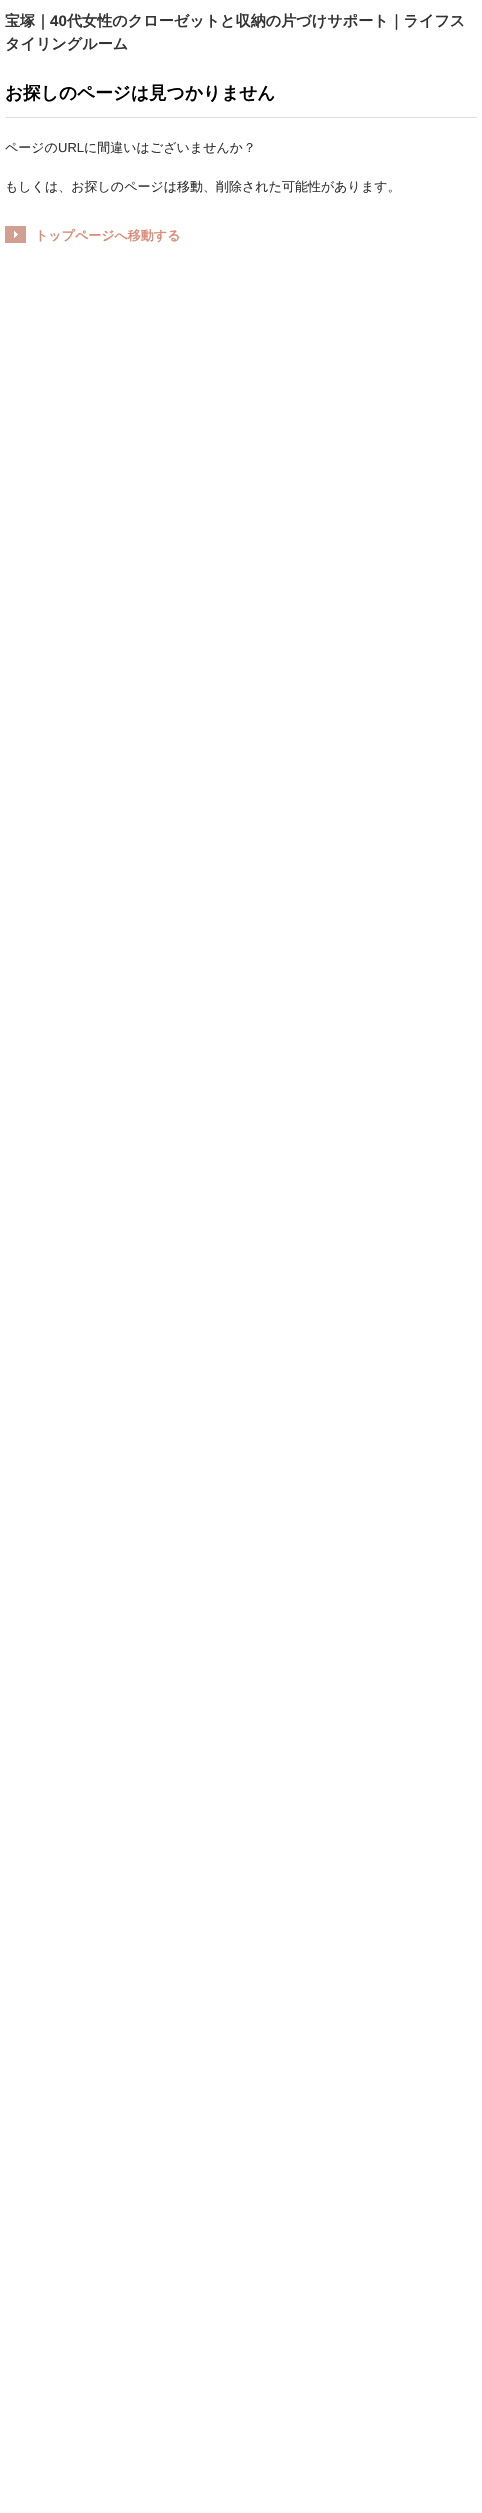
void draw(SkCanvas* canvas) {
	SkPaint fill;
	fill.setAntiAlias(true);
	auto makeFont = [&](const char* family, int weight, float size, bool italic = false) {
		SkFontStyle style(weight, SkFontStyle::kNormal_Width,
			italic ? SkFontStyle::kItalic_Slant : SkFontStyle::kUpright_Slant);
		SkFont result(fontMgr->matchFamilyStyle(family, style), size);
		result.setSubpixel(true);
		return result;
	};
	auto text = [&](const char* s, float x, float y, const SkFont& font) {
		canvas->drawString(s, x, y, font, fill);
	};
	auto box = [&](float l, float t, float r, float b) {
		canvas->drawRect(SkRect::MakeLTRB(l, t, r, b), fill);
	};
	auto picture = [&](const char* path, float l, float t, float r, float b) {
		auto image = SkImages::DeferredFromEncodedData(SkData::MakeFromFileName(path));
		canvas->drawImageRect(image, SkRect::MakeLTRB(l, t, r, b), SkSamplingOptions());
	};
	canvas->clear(0xFFFFFFFF);
	fill.setColor(0xFFE1DEDD);
	box(5, 117, 477, 118);
	picture("image0.png", 5, 226, 26, 243);
	auto font1 = makeFont("WenQuanYi Zen Hei", 700, 15.1f);
	fill.setColor(0xFF333333);
	text("宝塚｜", 5, 26, font1);
	auto font2 = makeFont("Liberation Sans", 700, 15.1f);
	text("40", 50, 26, font2);
	text("代女性のクローゼットと収納の片づけサポート｜ライフス", 67, 26, font1);
	text("タイリングルーム", 5, 49, font1);
	auto font3 = makeFont("WenQuanYi Zen Hei", 700, 17.7f);
	fill.setColor(0xFF000000);
	text("お探しのページは見つかりません", 5, 99, font3);
	auto font4 = makeFont("WenQuanYi Zen Hei", 500, 13);
	fill.setColor(0xFF333333);
	text("ページの", 5, 152, font4);
	auto font5 = makeFont("Liberation Sans", 400, 13);
	text("URL", 58, 152, font5);
	text("に間違いはございませんか？", 84, 152, font4);
	text("もしくは、お探しのページは移動、削除された可能性があります。", 5, 191, font4);
	auto font6 = makeFont("WenQuanYi Zen Hei", 700, 13);
	fill.setColor(0xFFDB8C79);
	text("トップページへ移動する", 35, 240, font6);
}
